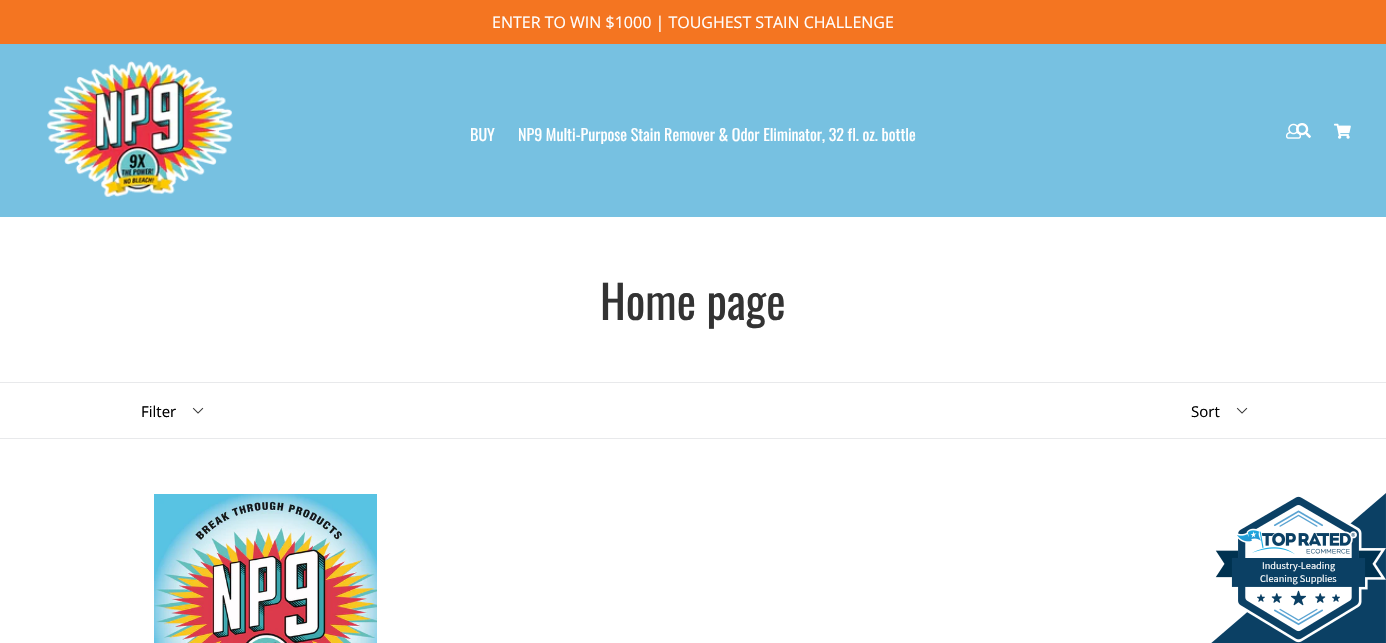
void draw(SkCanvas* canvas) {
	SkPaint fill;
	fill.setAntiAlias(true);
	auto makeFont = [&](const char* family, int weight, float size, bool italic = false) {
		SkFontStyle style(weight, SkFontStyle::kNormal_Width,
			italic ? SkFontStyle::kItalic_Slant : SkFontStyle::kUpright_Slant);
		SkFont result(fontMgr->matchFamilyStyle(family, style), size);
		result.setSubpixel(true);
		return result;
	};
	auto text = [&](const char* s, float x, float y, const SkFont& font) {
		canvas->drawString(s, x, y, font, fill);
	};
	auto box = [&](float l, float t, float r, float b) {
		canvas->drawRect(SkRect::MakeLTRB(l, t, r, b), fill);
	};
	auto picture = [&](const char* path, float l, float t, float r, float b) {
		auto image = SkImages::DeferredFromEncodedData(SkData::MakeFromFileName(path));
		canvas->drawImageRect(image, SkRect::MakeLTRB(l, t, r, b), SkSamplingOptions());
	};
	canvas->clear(0xFFFFFFFF);
	fill.setColor(0xFF77C1E1);
	box(0, 44, 1386, 217);
	fill.setColor(0xFFF47521);
	box(0, 0, 1386, 44);
	picture("image0.png", 47, 61, 233, 197);
	picture("image1.png", 1286, 123, 1301, 139);
	picture("image2.png", 1296, 123, 1311, 138);
	picture("image3.png", 1334, 123, 1351, 139);
	fill.setColor(0xFFE8E9EB);
	box(0, 382, 1386, 383);
	box(0, 438, 1386, 439);
	picture("image4.png", 192, 407, 204, 414);
	picture("image4.png", 1236, 407, 1248, 414);
	picture("image5.png", 154, 494, 377, 643);
	picture("image6.png", 1211, 493, 1386, 643);
	auto font1 = makeFont("Open Sans", 400, 16);
	fill.setColor(0xFFFFFFFF);
	text("ENTER TO WIN $1000 | TOUGHEST STAIN CHALLENGE", 492, 28, font1);
	auto font2 = makeFont("Oswald", 400, 16);
	text("BUY", 470, 141, font2);
	text("NP9 Multi-Purpose Stain Remover & Odor Eliminator, 32 fl. oz. bottle", 518, 141, font2);
	auto font3 = makeFont("Oswald", 400, 46);
	fill.setColor(0xFF333333);
	text("Home page", 600, 320, font3);
	auto font4 = makeFont("Open Sans", 400, 15);
	fill.setColor(0xFF000000);
	text("Filter", 141, 417, font4);
	text("Sort", 1191, 417, font4);
	auto font5 = makeFont("Source Sans Pro", 400, 10.25f);
	fill.setColor(0xFFFFFFFF);
	text("Industry-Leading", 1262, 569, font5);
	text("Cleaning Supplies", 1260, 582, font5);
}
